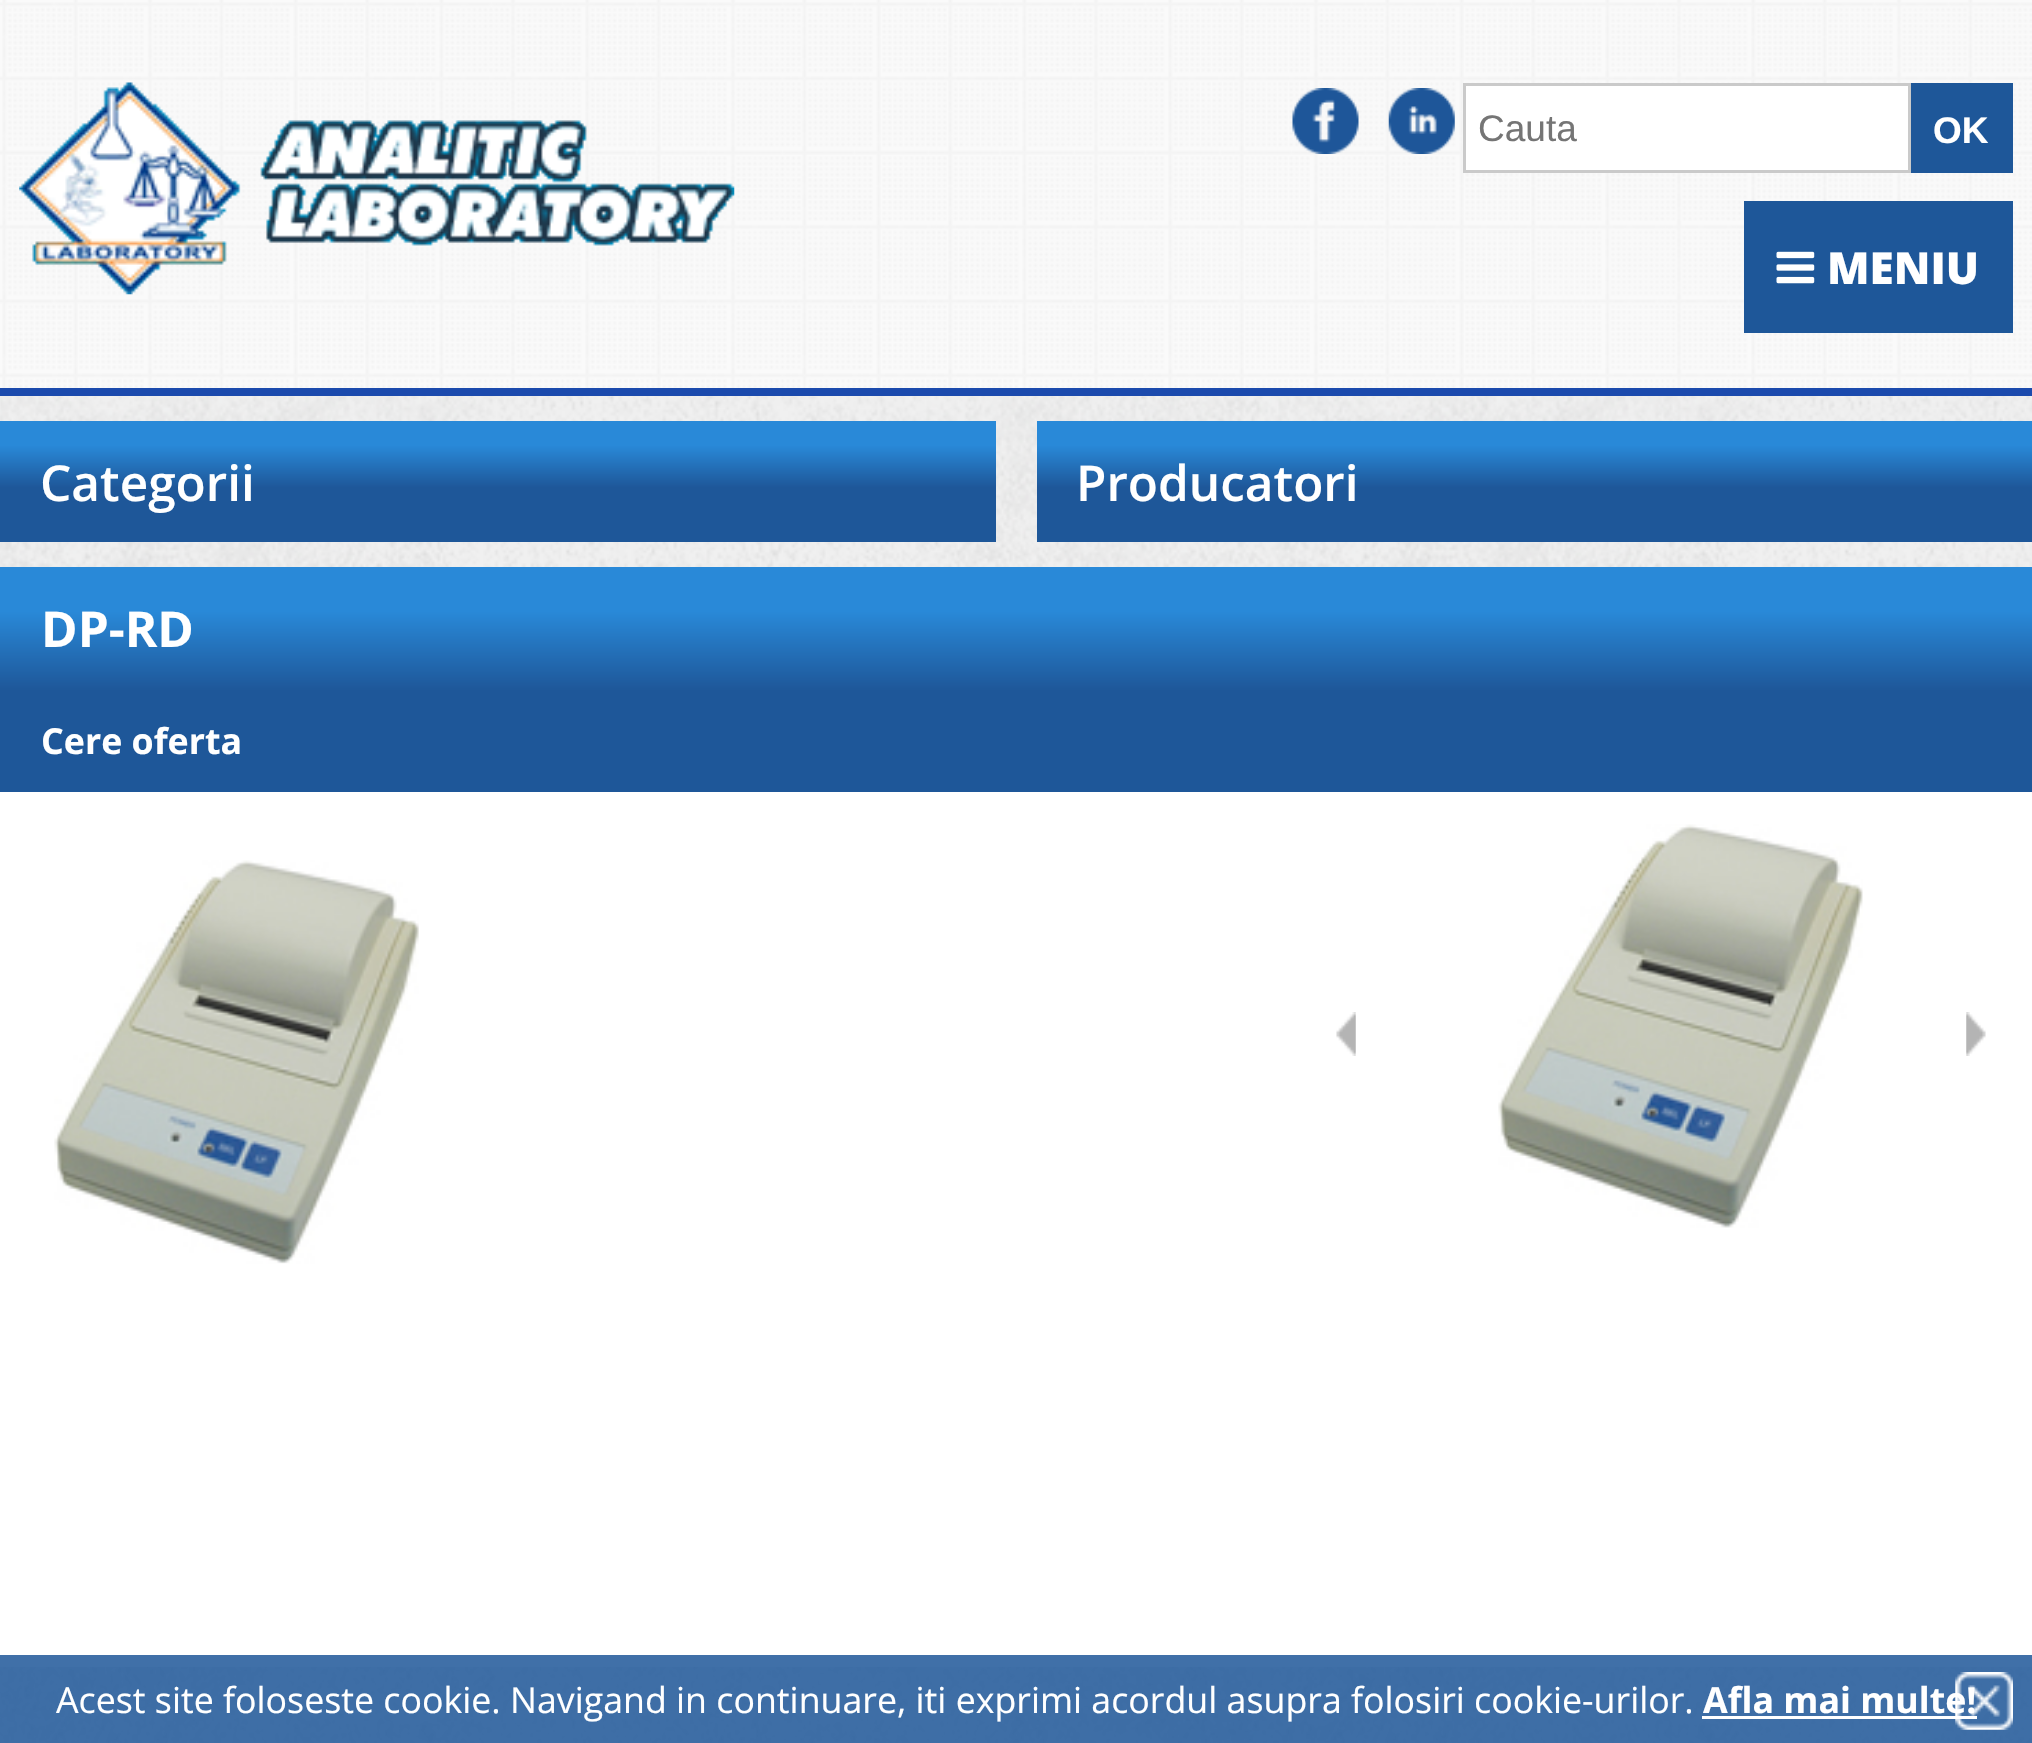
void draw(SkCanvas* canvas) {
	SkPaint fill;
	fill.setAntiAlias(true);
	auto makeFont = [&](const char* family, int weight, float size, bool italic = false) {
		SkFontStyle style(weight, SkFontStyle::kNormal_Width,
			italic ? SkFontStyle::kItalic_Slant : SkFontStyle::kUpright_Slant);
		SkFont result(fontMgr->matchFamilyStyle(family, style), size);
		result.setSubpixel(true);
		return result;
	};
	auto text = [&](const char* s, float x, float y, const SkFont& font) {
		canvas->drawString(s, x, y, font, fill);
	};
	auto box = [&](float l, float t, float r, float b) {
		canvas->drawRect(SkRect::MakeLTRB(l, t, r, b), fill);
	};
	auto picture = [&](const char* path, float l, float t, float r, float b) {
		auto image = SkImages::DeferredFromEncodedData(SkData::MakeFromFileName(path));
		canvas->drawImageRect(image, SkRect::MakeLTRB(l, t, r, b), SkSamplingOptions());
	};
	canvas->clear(0xFFFFFFFF);
	picture("image0.png", 0, 0, 2032, 388);
	fill.setColor(0xFF1B4AAD);
	box(0, 388, 2032, 396);
	picture("image1.png", 19, 82, 735, 295);
	picture("image2.png", 1292, 88, 1359, 154);
	picture("image3.png", 1388, 88, 1455, 154);
	fill.setColor(0xFFFFFFFF);
	canvas->drawRect(SkRect::MakeLTRB(1464.5f, 84.5f, 1909.5f, 171.5f), fill);
	fill.setStyle(SkPaint::kStroke_Style);
	fill.setStrokeWidth(3);
	fill.setColor(0xFFCACACA);
	canvas->drawRect(SkRect::MakeLTRB(1464.5f, 84.5f, 1909.5f, 171.5f), fill);
	fill.setStyle(SkPaint::kFill_Style);
	fill.setColor(0xFF1E5799);
	box(1911, 83, 2013, 173);
	box(1744, 201, 2013, 333);
	picture("image4.png", 1776, 251, 1815, 284);
	picture("image5.png", 0, 396, 2032, 1743);
	{
		const SkColor colors[] = {0xFF2989D8, 0xFF2989D8, 0xFF1E5799, 0xFF1E5799};
		const float stops[] = {0, 0.2f, 0.55f, 1};
		const SkPoint ends[] = {{498, 421}, {498, 542}};
		fill.setShader(SkGradientShader::MakeLinear(ends, colors, stops, 4, SkTileMode::kClamp));
		fill.setAlpha(255);
	}
	box(0, 421, 996, 542);
	{
		const SkColor colors[] = {0xFF2989D8, 0xFF2989D8, 0xFF1E5799, 0xFF1E5799};
		const float stops[] = {0, 0.2f, 0.55f, 1};
		const SkPoint ends[] = {{1535, 421}, {1535, 542}};
		fill.setShader(SkGradientShader::MakeLinear(ends, colors, stops, 4, SkTileMode::kClamp));
		fill.setAlpha(255);
	}
	box(1037, 421, 2032, 542);
	fill.setShader(nullptr);
	fill.setColor(0xFFFFFFFF);
	box(0, 792, 2032, 1667);
	{
		const SkColor colors[] = {0xFF2989D8, 0xFF2989D8, 0xFF1E5799, 0xFF1E5799};
		const float stops[] = {0, 0.2f, 0.55f, 1};
		const SkPoint ends[] = {{1016, 566}, {1016, 792}};
		fill.setShader(SkGradientShader::MakeLinear(ends, colors, stops, 4, SkTileMode::kClamp));
		fill.setAlpha(255);
	}
	box(0, 567, 2032, 792);
	picture("image6.png", 54, 860, 419, 1264);
	picture("image7.png", 1336, 1012, 1356, 1056);
	picture("image8.png", 1498, 824, 1863, 1228);
	picture("image9.png", 1966, 1012, 1986, 1056);
	fill.setShader(nullptr);
	fill.setColor(0xD91F5799);
	box(0, 1655, 2032, 1743);
	fill.setColor(0xFFFFFFFF);
	box(1702, 1716, 1977, 1719);
	auto font1 = makeFont("Liberation Sans", 400, 37);
	fill.setColor(0xFF757575);
	text("Cauta", 1478, 141, font1);
	auto font2 = makeFont("Liberation Sans", 700, 37);
	fill.setColor(0xFFFFFFFF);
	text("OK", 1933, 143, font2);
	auto font3 = makeFont("Open Sans", 800, 44);
	text("MENIU", 1827, 284, font3);
	auto font4 = makeFont("Open Sans", 600, 49.5f);
	text("Categorii", 40, 501, font4);
	text("Producatori", 1076, 501, font4);
	auto font5 = makeFont("Open Sans", 700, 49.5f);
	text("DP-RD", 41, 647, font5);
	auto font6 = makeFont("Open Sans", 700, 35.75f);
	text("Cere oferta", 41, 754, font6);
	auto font7 = makeFont("Open Sans", 400, 35.75f);
	text("Acest site foloseste cookie. Navigand in continuare, iti exprimi acordul asupra folosiri cookie-urilor.", 56, 1713, font7);
	text("Afla mai multe!", 1703, 1713, font6);
	picture("image10.png", 1955, 1672, 2013, 1730);
}
